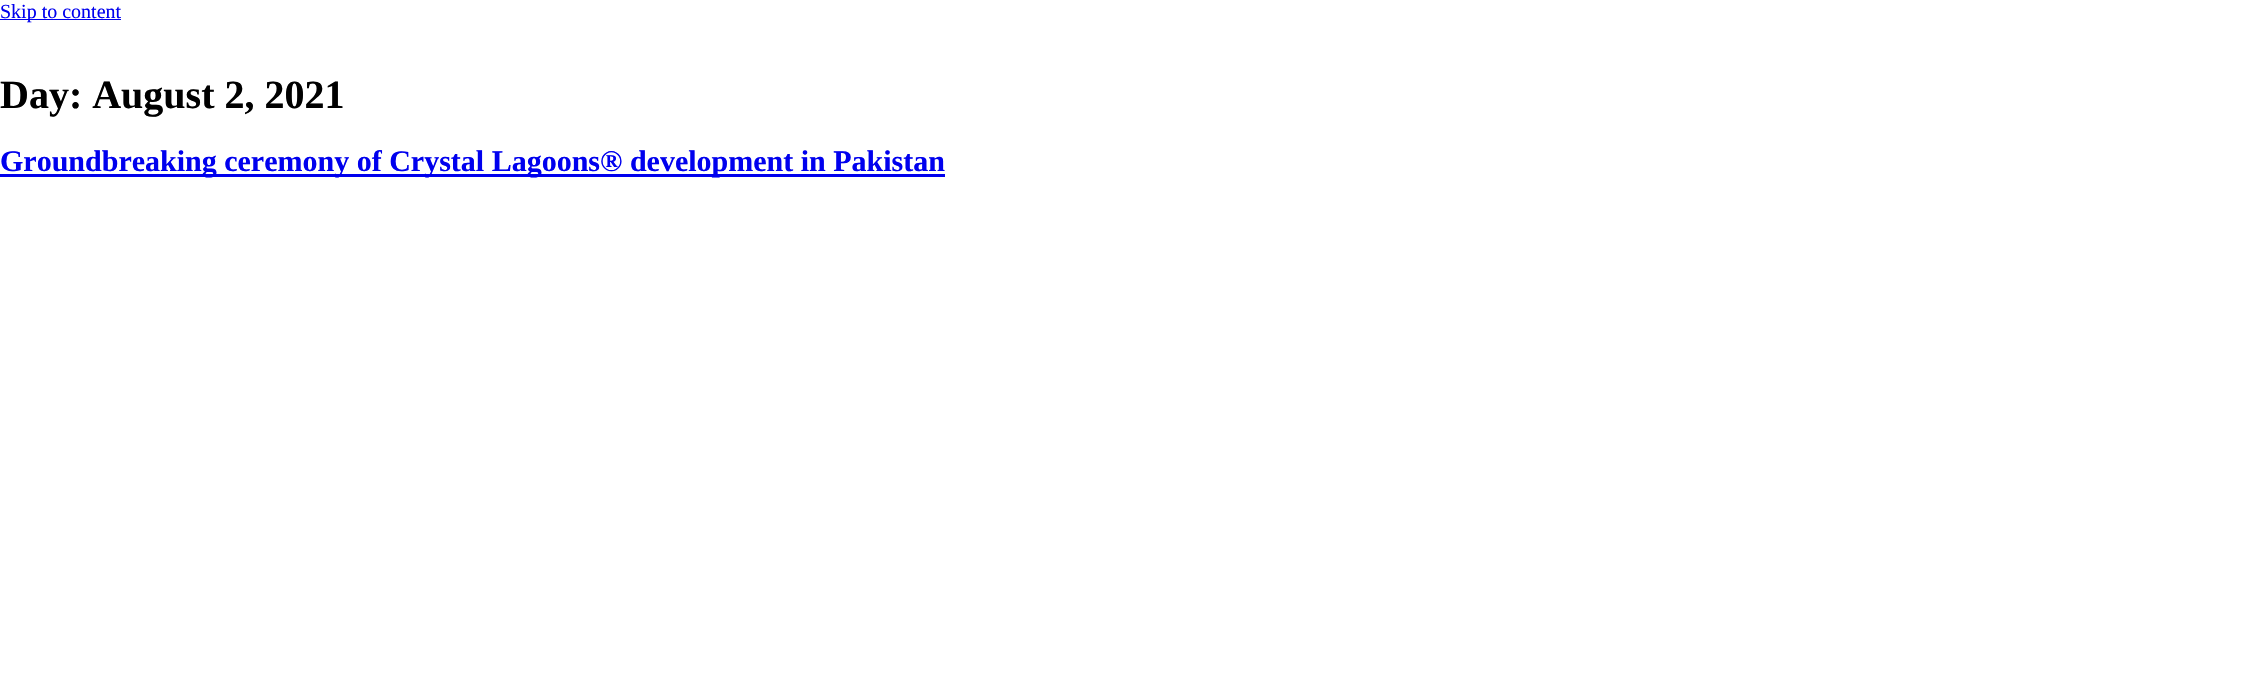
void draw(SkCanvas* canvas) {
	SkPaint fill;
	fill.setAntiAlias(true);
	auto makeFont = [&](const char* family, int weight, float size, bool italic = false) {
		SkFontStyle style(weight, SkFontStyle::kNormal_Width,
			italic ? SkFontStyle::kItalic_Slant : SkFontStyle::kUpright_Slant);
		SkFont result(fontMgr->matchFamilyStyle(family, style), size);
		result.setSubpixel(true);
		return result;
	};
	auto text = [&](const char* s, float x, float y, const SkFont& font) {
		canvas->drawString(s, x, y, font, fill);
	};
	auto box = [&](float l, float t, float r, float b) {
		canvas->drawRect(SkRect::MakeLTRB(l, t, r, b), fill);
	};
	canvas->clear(0xFFFFFFFF);
	fill.setColor(0xFF0000EE);
	box(0, 19, 121, 20);
	box(0, 174, 945, 177);
	auto font1 = makeFont("Liberation Serif", 400, 20);
	text("Skip to content", 0, 18, font1);
	auto font2 = makeFont("Liberation Serif", 700, 40);
	fill.setColor(0xFF000000);
	text("Day: August 2, 2021", 0, 108, font2);
	auto font3 = makeFont("Liberation Serif", 700, 30);
	fill.setColor(0xFF0000EE);
	text("Groundbreaking ceremony of Crystal Lagoons® development in Pakistan", 0, 171, font3);
}
